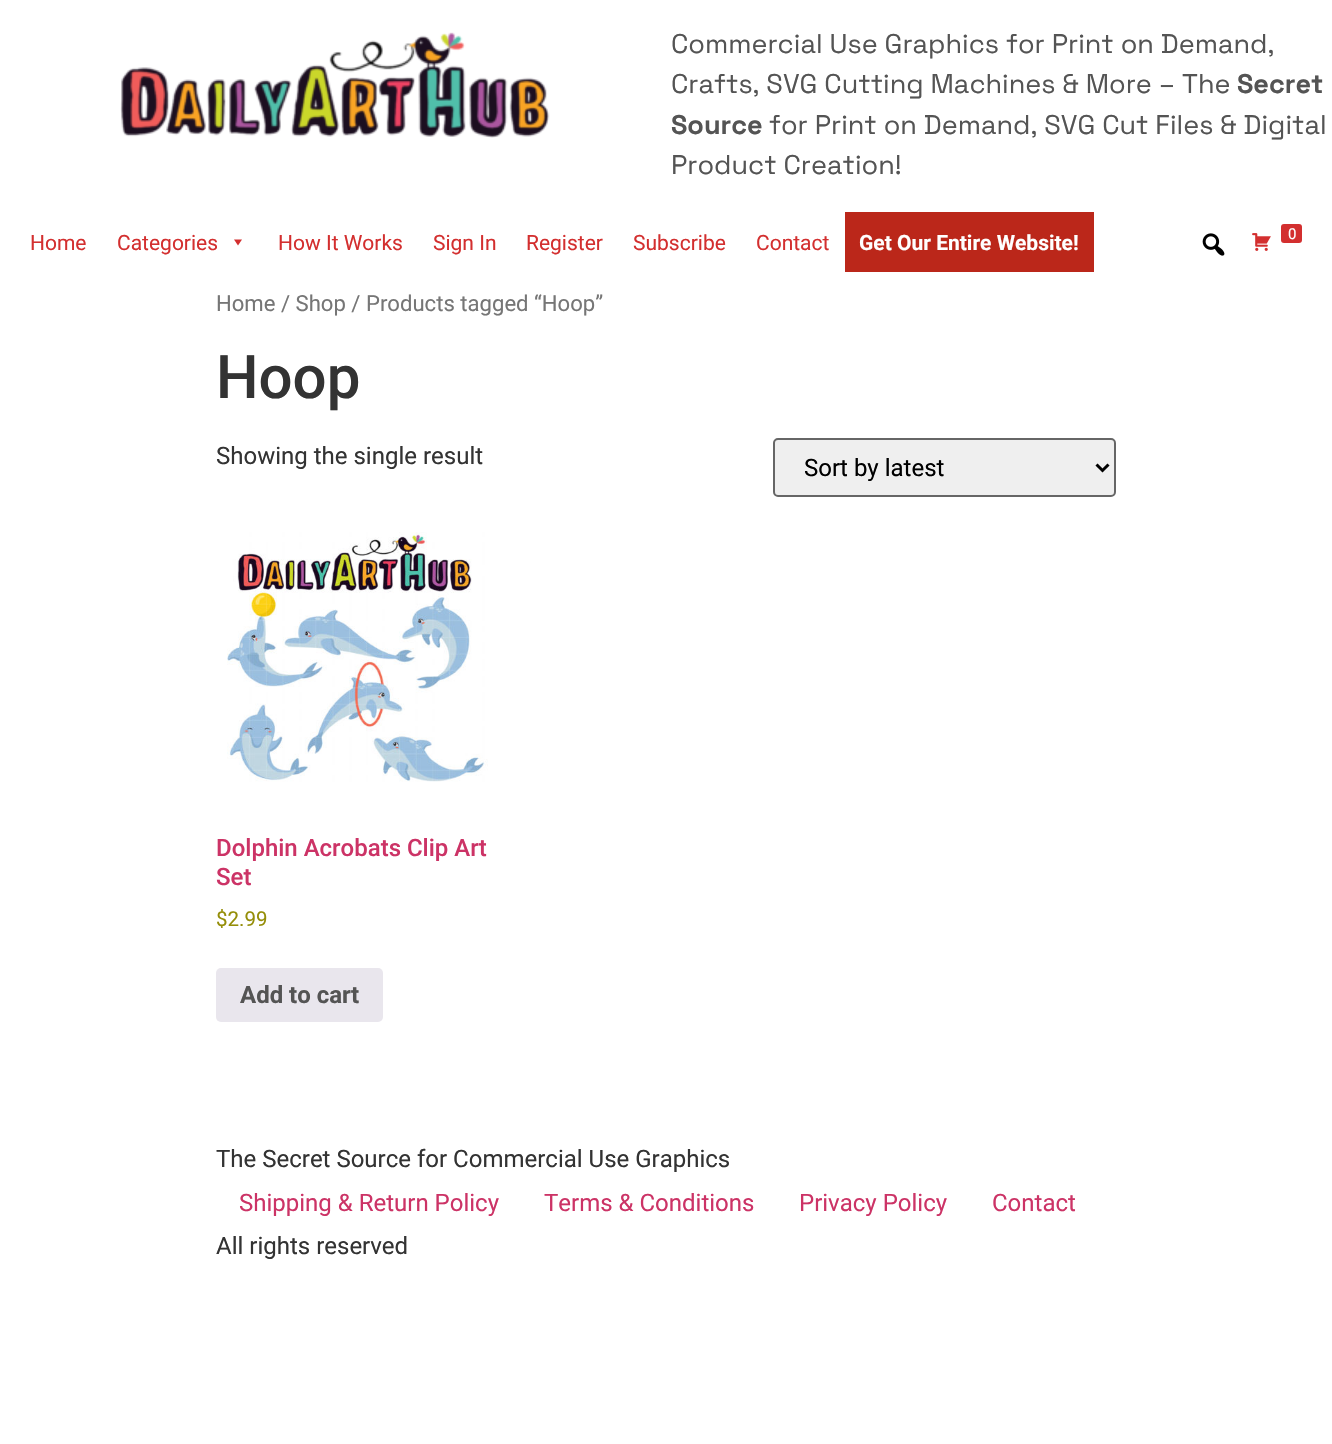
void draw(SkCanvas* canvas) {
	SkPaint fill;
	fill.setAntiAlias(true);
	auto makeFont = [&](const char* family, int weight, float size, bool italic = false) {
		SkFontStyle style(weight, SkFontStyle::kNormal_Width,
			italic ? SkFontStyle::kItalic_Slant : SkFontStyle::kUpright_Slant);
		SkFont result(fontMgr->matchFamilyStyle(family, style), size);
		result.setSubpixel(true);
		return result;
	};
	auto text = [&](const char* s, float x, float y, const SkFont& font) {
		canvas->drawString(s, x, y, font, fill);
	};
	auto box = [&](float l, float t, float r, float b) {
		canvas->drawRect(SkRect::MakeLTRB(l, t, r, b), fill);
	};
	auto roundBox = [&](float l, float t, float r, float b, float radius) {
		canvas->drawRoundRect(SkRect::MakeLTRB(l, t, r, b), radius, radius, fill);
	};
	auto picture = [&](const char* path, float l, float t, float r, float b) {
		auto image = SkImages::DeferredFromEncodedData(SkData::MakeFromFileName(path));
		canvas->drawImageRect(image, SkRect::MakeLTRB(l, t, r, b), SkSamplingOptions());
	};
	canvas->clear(0xFFFFFFFF);
	picture("image0.png", 120, 32, 550, 138);
	fill.setColor(0xFFD32F2F);
	canvas->drawPath(SkPathBuilder().moveTo(242, 239.5f).lineTo(238, 245.5f).lineTo(234, 239.5f).close().detach(), fill);
	fill.setColor(0xFFBB271A);
	box(845, 212, 1094, 272);
	picture("image1.png", 1202, 233, 1225, 256);
	picture("image2.png", 1252, 233, 1271, 251);
	fill.setColor(0xFFD32F2F);
	roundBox(1281, 224, 1302, 243, 3);
	fill.setColor(0xFFEFEFEF);
	canvas->drawRoundRect(SkRect::MakeLTRB(774, 439, 1115, 496), 4, 4, fill);
	fill.setStyle(SkPaint::kStroke_Style);
	fill.setStrokeWidth(2);
	fill.setColor(0xFF666666);
	canvas->drawRoundRect(SkRect::MakeLTRB(774, 439, 1115, 496), 4, 4, fill);
	fill.setStrokeWidth(3);
	fill.setColor(0xFF000000);
	canvas->drawPath(SkPathBuilder().moveTo(1096.5f, 464.5f).lineTo(1102.5f, 470.5f).lineTo(1108.5f, 464.5f).detach(), fill);
	picture("image3.png", 227, 532, 488, 782);
	fill.setStyle(SkPaint::kFill_Style);
	fill.setColor(0xFFE9E6ED);
	roundBox(216, 968, 383, 1022, 5);
	auto font1 = makeFont("Space Grotesk", 400, 27);
	fill.setColor(0xFF545454);
	text("Commercial Use Graphics for Print on Demand,", 671, 53, font1);
	text("Crafts, SVG Cutting Machines & More – The", 671, 93, font1);
	auto font2 = makeFont("Space Grotesk", 700, 27);
	text("Secret", 1237, 93, font2);
	text("Source", 671, 134, font2);
	text("for Print on Demand, SVG Cut Files & Digital", 769, 134, font1);
	text("Product Creation!", 671, 174, font1);
	auto font3 = makeFont("Roboto", 400, 21);
	fill.setColor(0xFFD32F2F);
	text("Home", 30, 250, font3);
	text("Categories", 117, 250, font3);
	text("How It Works", 278, 250, font3);
	text("Sign In", 433, 250, font3);
	text("Register", 526, 250, font3);
	text("Subscribe", 633, 250, font3);
	text("Contact", 756, 250, font3);
	auto font4 = makeFont("Roboto", 700, 21);
	fill.setColor(0xFFFFFFFF);
	text("Get Our Entire Website!", 859, 250, font4);
	auto font5 = makeFont("Roboto", 400, 15);
	text("0", 1288, 239, font5);
	auto font6 = makeFont("Roboto", 400, 22.1f);
	fill.setColor(0xFF767676);
	text("Home / Shop / Products tagged “Hoop”", 216, 311, font6);
	auto font7 = makeFont("Roboto", 500, 60);
	fill.setColor(0xFF333333);
	text("Hoop", 216, 398, font7);
	auto font8 = makeFont("Roboto", 400, 24);
	text("Showing the single result", 216, 464, font8);
	fill.setColor(0xFF000000);
	text("Sort by latest", 804, 476, font8);
	auto font9 = makeFont("Roboto", 500, 24);
	fill.setColor(0xFFCC3366);
	text("Dolphin Acrobats Clip Art", 216, 856, font9);
	text("Set", 216, 885, font9);
	auto font10 = makeFont("Roboto", 400, 20.5f);
	fill.setColor(0xFF958E09);
	text("$2.99", 216, 926, font10);
	auto font11 = makeFont("Roboto", 700, 24);
	fill.setColor(0xFF545454);
	text("Add to cart", 240, 1003, font11);
	fill.setColor(0xFF333333);
	text("The Secret Source for Commercial Use Graphics", 216, 1167, font8);
	fill.setColor(0xFFCC3366);
	text("Shipping & Return Policy", 239, 1211, font8);
	text("Terms & Conditions", 544, 1211, font8);
	text("Privacy Policy", 799, 1211, font8);
	text("Contact", 992, 1211, font8);
	fill.setColor(0xFF333333);
	text("All rights reserved", 216, 1254, font8);
}
